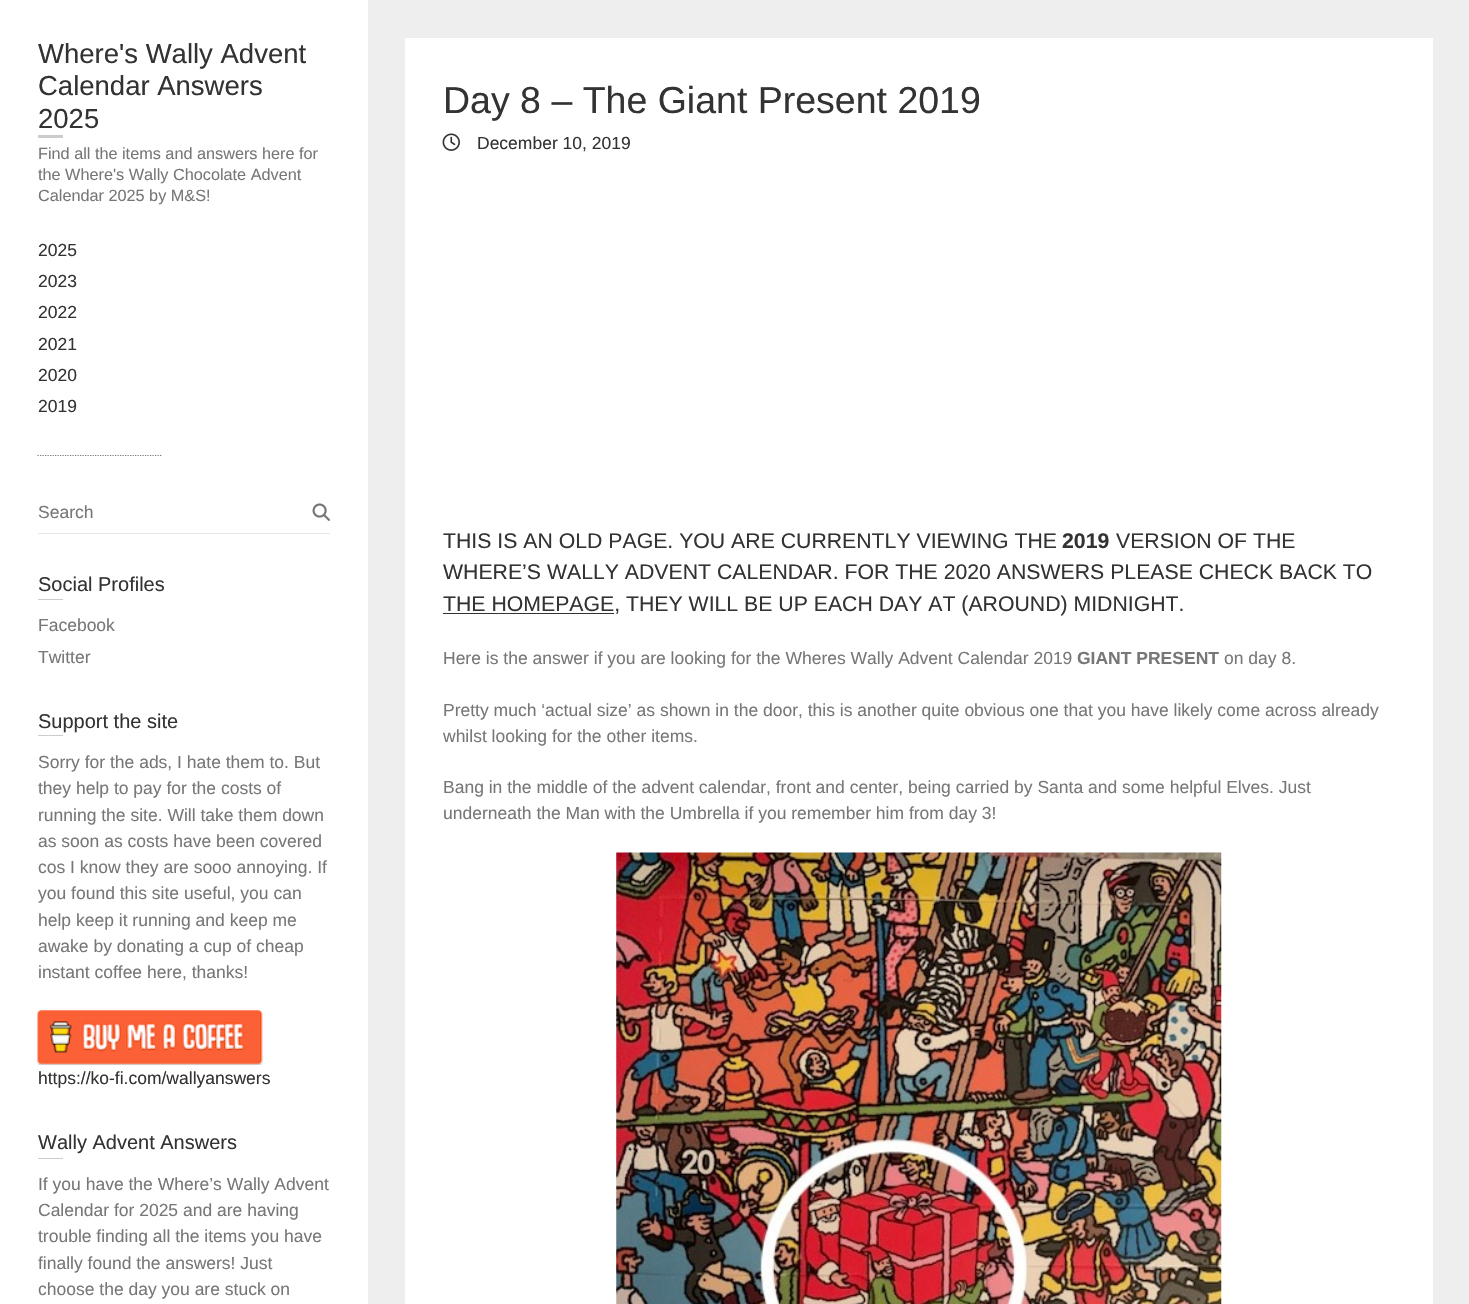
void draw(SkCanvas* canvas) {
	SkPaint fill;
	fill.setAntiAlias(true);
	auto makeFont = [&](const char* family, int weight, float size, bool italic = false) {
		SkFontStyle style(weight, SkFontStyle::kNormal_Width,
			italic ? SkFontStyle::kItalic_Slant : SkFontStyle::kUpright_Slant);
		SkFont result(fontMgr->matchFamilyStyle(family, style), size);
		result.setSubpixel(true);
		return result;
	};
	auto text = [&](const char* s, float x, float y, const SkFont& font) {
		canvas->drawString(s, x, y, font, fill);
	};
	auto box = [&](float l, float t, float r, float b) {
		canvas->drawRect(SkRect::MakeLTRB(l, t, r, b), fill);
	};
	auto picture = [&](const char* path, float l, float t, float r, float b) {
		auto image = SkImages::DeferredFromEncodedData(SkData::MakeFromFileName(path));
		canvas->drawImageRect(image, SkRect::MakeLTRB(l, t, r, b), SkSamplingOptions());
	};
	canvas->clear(0xFFEEEEEE);
	fill.setColor(0xFFFFFFFF);
	box(0, 0, 368, 1304);
	fill.setColor(0xFFCCCCCC);
	box(38, 135, 63, 138);
	fill.setStyle(SkPaint::kStroke_Style);
	fill.setStrokeWidth(1.2f);
	fill.setColor(0xFF777777);
	fill.setPathEffect(SkDashPathEffect::Make({{1.25f, 1.25f}}, 0));
	canvas->drawPath(SkPathBuilder().moveTo(37.5f, 455.5f).lineTo(162.5f, 455.5f).detach(), fill);
	fill.setPathEffect(nullptr);
	fill.setStyle(SkPaint::kFill_Style);
	fill.setColor(0xFFFFFFFF);
	box(405, 38, 1433, 1304);
	picture("image0.png", 442, 133, 460, 151);
	fill.setColor(0xFF333333);
	box(443, 613, 614, 614);
	picture("image1.png", 616, 852, 1222, 1304);
	fill.setColor(0xFFE6E6E6);
	box(38, 533, 330, 534);
	picture("image2.png", 312, 503, 330, 521);
	fill.setColor(0xFFCCCCCC);
	box(38, 599, 63, 600);
	box(38, 735, 63, 736);
	picture("image3.png", 37, 1010, 263, 1065);
	box(38, 1158, 63, 1159);
	auto font1 = makeFont("Liberation Sans", 400, 27.5f);
	fill.setColor(0xFF333333);
	text("Where's Wally Advent", 38, 63, font1);
	text("Calendar Answers", 38, 95, font1);
	text("2025", 38, 128, font1);
	auto font2 = makeFont("Liberation Sans", 400, 16.25f);
	fill.setColor(0xFF777777);
	text("Find all the items and answers here for", 38, 159, font2);
	text("the Where's Wally Chocolate Advent", 38, 180, font2);
	text("Calendar 2025 by M&S!", 38, 201, font2);
	auto font3 = makeFont("Liberation Sans", 400, 17.5f);
	fill.setColor(0xFF333333);
	text("2025", 38, 256, font3);
	text("2023", 38, 287, font3);
	text("2022", 38, 318, font3);
	text("2021", 38, 350, font3);
	text("2020", 38, 381, font3);
	text("2019", 38, 412, font3);
	auto font4 = makeFont("Liberation Sans", 400, 37.5f);
	text("Day 8 – The Giant Present 2019", 443, 113, font4);
	text("December 10, 2019", 477, 149, font3);
	auto font5 = makeFont("Liberation Sans", 400, 21.25f);
	text("THIS IS AN OLD PAGE. YOU ARE CURRENTLY VIEWING THE", 443, 548, font5);
	auto font6 = makeFont("Liberation Sans", 700, 21.25f);
	text("2019", 1062, 548, font6);
	text("VERSION OF THE", 1116, 548, font5);
	text("WHERE’S WALLY ADVENT CALENDAR. FOR THE 2020 ANSWERS PLEASE CHECK BACK TO", 443, 579, font5);
	text("THE HOMEPAGE, THEY WILL BE UP EACH DAY AT (AROUND) MIDNIGHT.", 443, 611, font5);
	fill.setColor(0xFF777777);
	text("Here is the answer if you are looking for the Wheres Wally Advent Calendar 2019", 443, 664, font3);
	auto font7 = makeFont("Liberation Sans", 700, 17.5f);
	text("GIANT PRESENT", 1077, 664, font7);
	text("on day 8.", 1224, 664, font3);
	text("Pretty much ‘actual size’ as shown in the door, this is another quite obvious one that you have likely come across already", 443, 716, font3);
	text("whilst looking for the other items.", 443, 742, font3);
	text("Bang in the middle of the advent calendar, front and center, being carried by Santa and some helpful Elves. Just", 443, 793, font3);
	text("underneath the Man with the Umbrella if you remember him from day 3!", 443, 819, font3);
	text("Search", 38, 518, font3);
	auto font8 = makeFont("Liberation Sans", 400, 20);
	fill.setColor(0xFF333333);
	text("Social Profiles", 38, 591, font8);
	fill.setColor(0xFF777777);
	text("Facebook", 38, 631, font3);
	text("Twitter", 38, 663, font3);
	fill.setColor(0xFF333333);
	text("Support the site", 38, 728, font8);
	fill.setColor(0xFF777777);
	text("Sorry for the ads, I hate them to. But", 38, 768, font3);
	text("they help to pay for the costs of", 38, 794, font3);
	text("running the site. Will take them down", 38, 821, font3);
	text("as soon as costs have been covered", 38, 847, font3);
	text("cos I know they are sooo annoying. If", 38, 873, font3);
	text("you found this site useful, you can", 38, 899, font3);
	text("help keep it running and keep me", 38, 926, font3);
	text("awake by donating a cup of cheap", 38, 952, font3);
	text("instant coffee here, thanks!", 38, 978, font3);
	fill.setColor(0xFF333333);
	text("https://ko-fi.com/wallyanswers", 38, 1084, font3);
	text("Wally Advent Answers", 38, 1149, font8);
	fill.setColor(0xFF777777);
	text("If you have the Where’s Wally Advent", 38, 1190, font3);
	text("Calendar for 2025 and are having", 38, 1216, font3);
	text("trouble finding all the items you have", 38, 1242, font3);
	text("finally found the answers! Just", 38, 1269, font3);
	text("choose the day you are stuck on", 38, 1295, font3);
}
